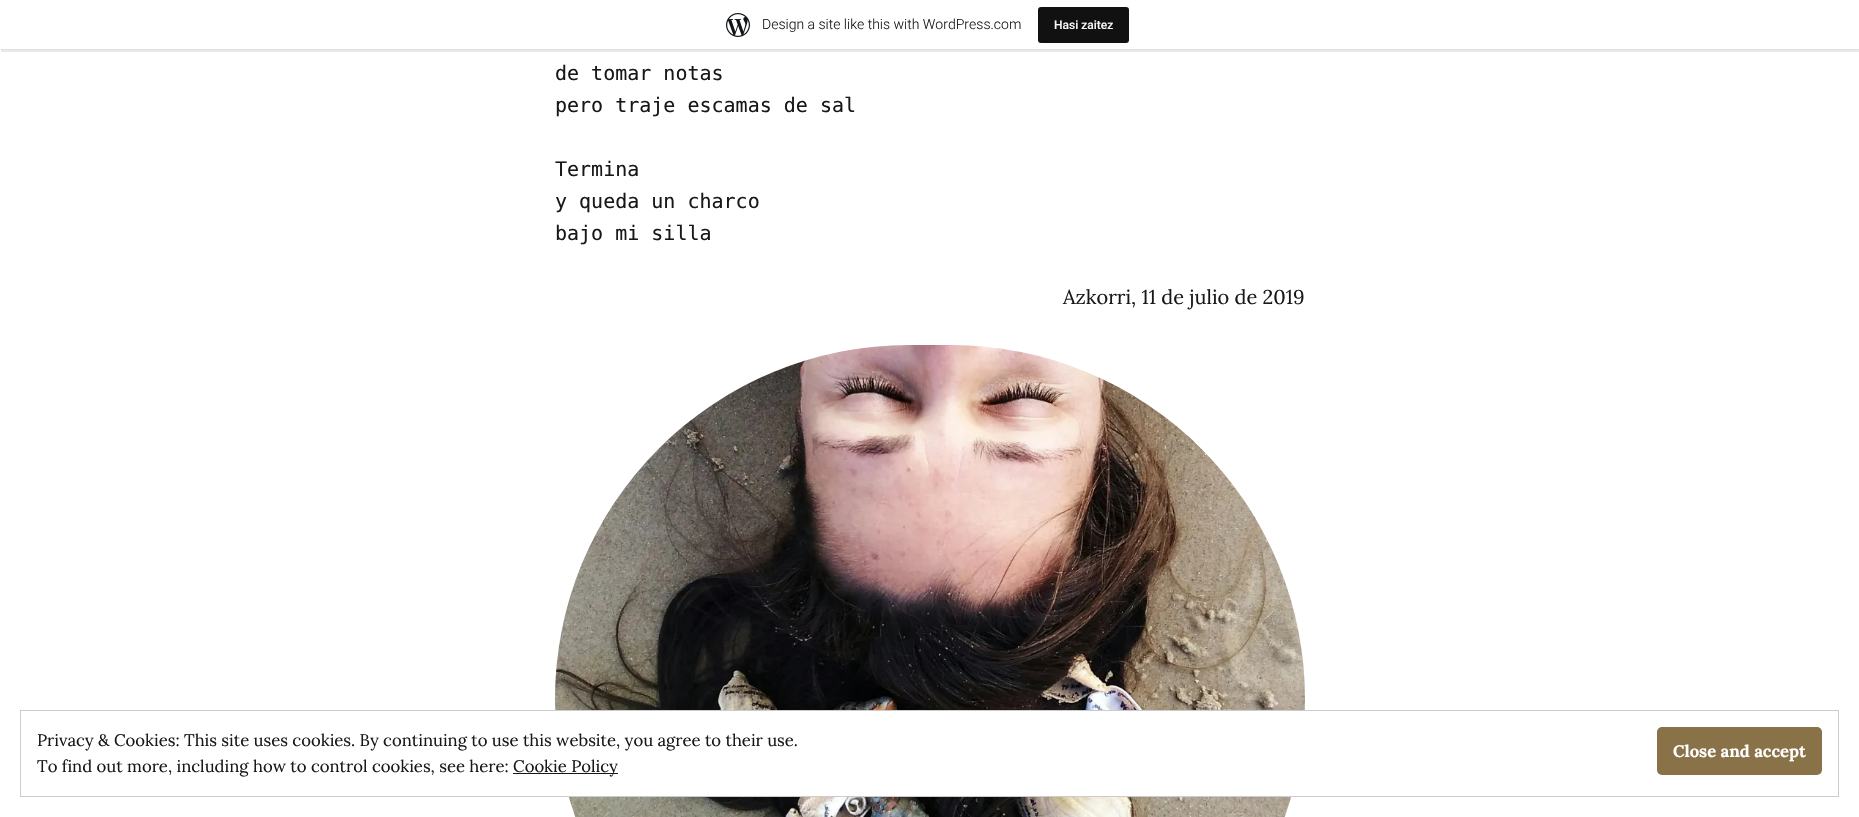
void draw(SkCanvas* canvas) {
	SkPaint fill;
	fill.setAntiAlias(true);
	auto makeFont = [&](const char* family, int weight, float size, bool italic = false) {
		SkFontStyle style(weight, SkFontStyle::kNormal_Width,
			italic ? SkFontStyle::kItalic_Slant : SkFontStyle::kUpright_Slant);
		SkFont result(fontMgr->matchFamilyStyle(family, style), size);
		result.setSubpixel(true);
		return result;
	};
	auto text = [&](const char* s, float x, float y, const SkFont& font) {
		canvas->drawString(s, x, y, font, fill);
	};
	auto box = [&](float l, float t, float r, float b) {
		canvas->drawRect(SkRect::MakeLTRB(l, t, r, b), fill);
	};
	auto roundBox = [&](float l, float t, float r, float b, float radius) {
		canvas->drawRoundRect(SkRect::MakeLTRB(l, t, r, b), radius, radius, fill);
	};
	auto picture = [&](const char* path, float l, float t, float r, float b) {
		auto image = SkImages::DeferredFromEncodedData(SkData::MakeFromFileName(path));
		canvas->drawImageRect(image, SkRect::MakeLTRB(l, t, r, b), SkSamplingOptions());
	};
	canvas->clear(0xFFFFFFFF);
	fill.setColor(0x0D000000);
	fill.setMaskFilter(SkMaskFilter::MakeBlur(kNormal_SkBlurStyle, 1));
	canvas->drawRect(SkRect::MakeLTRB(0, 1, 1859, 50), fill);
	fill.setMaskFilter(nullptr);
	fill.setColor(0x14000000);
	canvas->drawPath(SkPathBuilder().moveTo(1, 49).lineTo(1, 52).lineTo(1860, 52).lineTo(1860, 3).lineTo(1859, 3).lineTo(1859, 49).close().detach(), fill);
	fill.setColor(0xFFFFFFFF);
	box(0, 0, 1859, 49);
	picture("image0.png", 726, 13, 750, 37);
	fill.setColor(0xFF111111);
	roundBox(1038, 7, 1129, 43, 3);
	picture("image1.png", 555, 345, 1305, 817);
	fill.setColor(0xFFFFFFFF);
	box(555, 711, 1305, 796);
	fill.setStyle(SkPaint::kStroke_Style);
	fill.setStrokeWidth(1);
	fill.setColor(0xFFCCCCCC);
	canvas->drawRect(SkRect::MakeLTRB(20.5f, 710.5f, 1838.5f, 796.5f), fill);
	fill.setStyle(SkPaint::kFill_Style);
	fill.setColor(0xFF897248);
	roundBox(1657, 727, 1822, 775, 5);
	fill.setColor(0xFF181818);
	box(513, 773, 618, 774);
	auto font1 = makeFont("Roboto", 300, 14);
	text("Design a site like this with WordPress.com", 762, 29, font1);
	auto font2 = makeFont("Roboto", 500, 12);
	fill.setColor(0xFFF6F7F7);
	text("Hasi zaitez", 1054, 29, font2);
	auto font3 = makeFont("DejaVu Sans Mono", 400, 20);
	fill.setColor(0xFF181818);
	text("de tomar notas", 555, 80, font3);
	text("pero traje escamas de sal", 555, 112, font3);
	text("Termina", 555, 176, font3);
	text("y queda un charco", 555, 208, font3);
	text("bajo mi silla", 555, 240, font3);
	auto font4 = makeFont("Lora", 400, 20);
	text("Azkorri, 11 de julio de 2019", 1063, 304, font4);
	auto font5 = makeFont("Lora", 400, 16.65f);
	text("Privacy & Cookies: This site uses cookies. By continuing to use this website, you agree to their use.", 37, 746, font5);
	auto font6 = makeFont("Lora", 700, 16.65f);
	fill.setColor(0xFFFFFFFF);
	text("Close and accept", 1673, 757, font6);
	fill.setColor(0xFF181818);
	text("To find out more, including how to control cookies, see here:", 37, 772, font5);
	text("Cookie Policy", 513, 772, font5);
}
